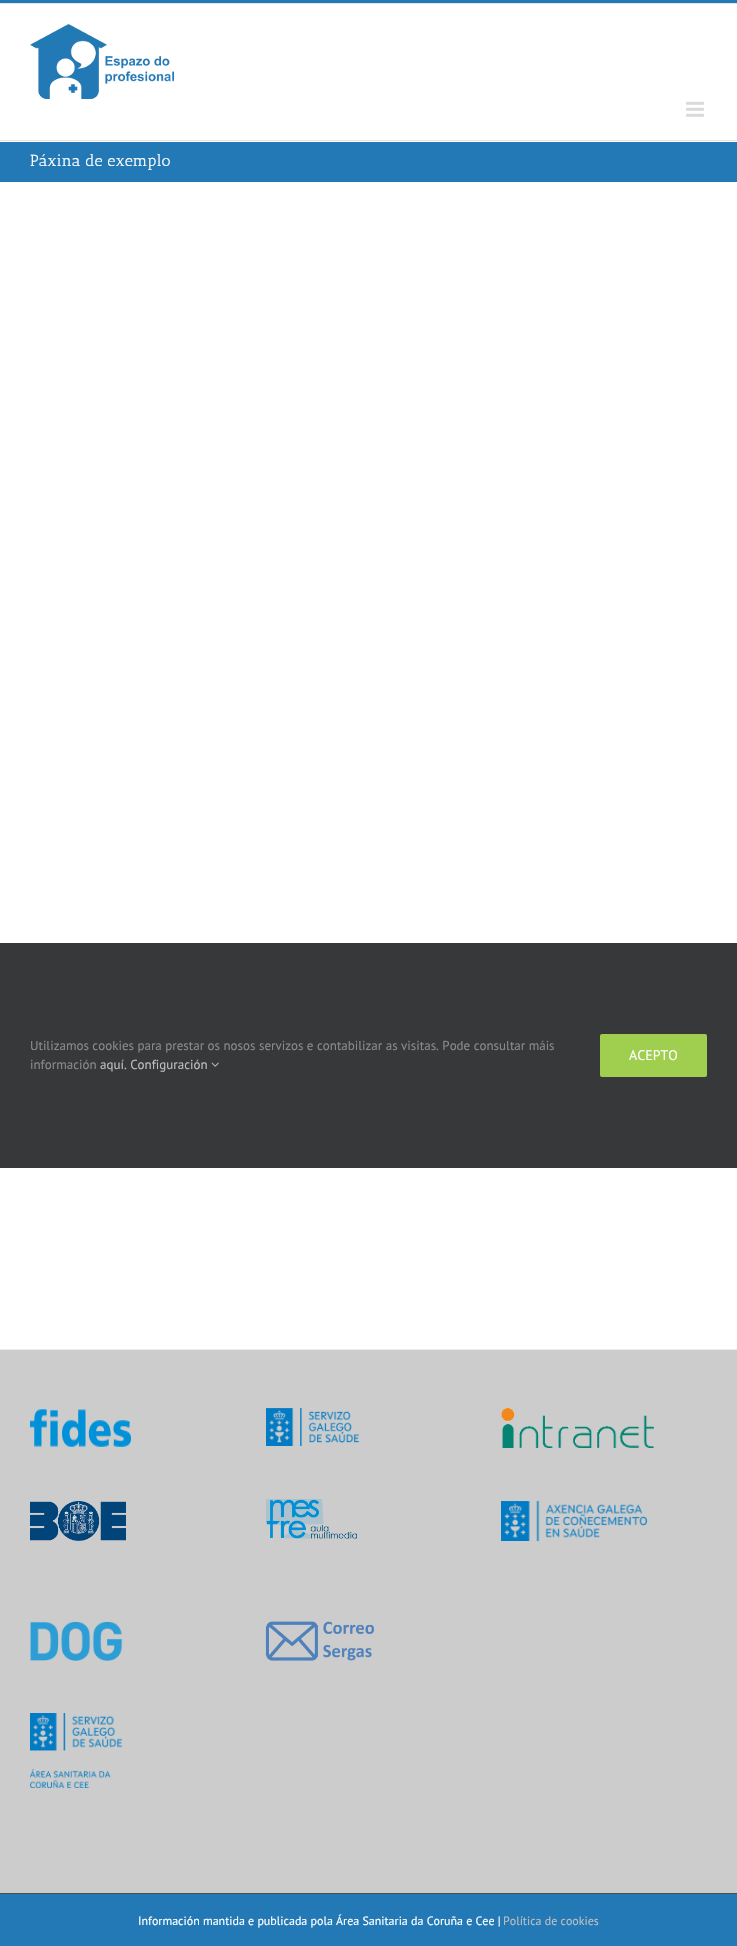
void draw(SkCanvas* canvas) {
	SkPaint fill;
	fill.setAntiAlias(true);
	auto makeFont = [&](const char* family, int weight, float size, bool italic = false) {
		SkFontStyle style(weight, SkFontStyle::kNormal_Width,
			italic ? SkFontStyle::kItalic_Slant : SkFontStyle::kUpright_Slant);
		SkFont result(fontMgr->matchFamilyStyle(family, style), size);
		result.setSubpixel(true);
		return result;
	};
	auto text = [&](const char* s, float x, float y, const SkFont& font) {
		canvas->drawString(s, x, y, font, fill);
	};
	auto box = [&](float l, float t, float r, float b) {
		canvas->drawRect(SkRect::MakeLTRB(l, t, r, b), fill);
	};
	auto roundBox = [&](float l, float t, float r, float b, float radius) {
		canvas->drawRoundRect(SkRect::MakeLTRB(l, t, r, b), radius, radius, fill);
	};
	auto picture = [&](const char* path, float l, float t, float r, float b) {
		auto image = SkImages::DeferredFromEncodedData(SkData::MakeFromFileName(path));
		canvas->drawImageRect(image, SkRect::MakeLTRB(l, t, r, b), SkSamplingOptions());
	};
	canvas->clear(0xFFFFFFFF);
	fill.setColor(0xFF2379B6);
	box(0, 0, 737, 3);
	fill.setColor(0xFFE5E5E5);
	box(0, 3, 737, 4);
	box(0, 140, 737, 141);
	picture("image0.png", 30, 24, 174, 99);
	picture("image1.png", 686, 101, 704, 117);
	fill.setColor(0xFF2379B6);
	box(0, 142, 737, 182);
	fill.setColor(0xFFCCCCCC);
	box(0, 1350, 737, 1893);
	fill.setColor(0xFFE9EAEE);
	box(0, 1349, 737, 1350);
	picture("image2.png", 30, 1409, 131, 1447);
	picture("image3.png", 30, 1501, 126, 1541);
	picture("image4.png", 266, 1408, 359, 1446);
	picture("image5.png", 266, 1499, 357, 1539);
	picture("image6.png", 501, 1408, 654, 1448);
	picture("image7.png", 501, 1501, 647, 1541);
	picture("image8.png", 30, 1621, 123, 1661);
	picture("image9.png", 30, 1713, 122, 1788);
	picture("image10.png", 265, 1621, 374, 1661);
	fill.setColor(0xFF2379B6);
	box(0, 1894, 737, 1946);
	fill.setColor(0xFF4B4C4D);
	box(0, 1893, 737, 1894);
	fill.setColor(0xFF363839);
	box(0, 943, 737, 1168);
	picture("image11.png", 211, 1062, 219, 1067);
	fill.setColor(0xFFA0CE4E);
	roundBox(600, 1034, 707, 1077, 2);
	auto font1 = makeFont("Antic Slab", 400, 16);
	fill.setColor(0xFFFFFFFF);
	text("Páxina de exemplo", 30, 166, font1);
	auto font2 = makeFont("PT Sans", 400, 12);
	text("Información mantida e publicada pola Área Sanitaria da Coruña e Cee |", 138, 1925, font2);
	fill.setColor(0xFFBFBFBF);
	text("Política de cookies", 503, 1925, font2);
	auto font3 = makeFont("PT Sans", 400, 13);
	fill.setColor(0xFF8C8989);
	text("Utilizamos cookies para prestar os nosos servizos e contabilizar as visitas. Pode consultar máis", 30, 1050, font3);
	text("información", 30, 1069, font3);
	fill.setColor(0xFFBFBFBF);
	text("aquí. Configuración", 100, 1069, font3);
	auto font4 = makeFont("PT Sans", 400, 14);
	fill.setColor(0xFFFFFFFF);
	text("ACEPTO", 629, 1060, font4);
}
